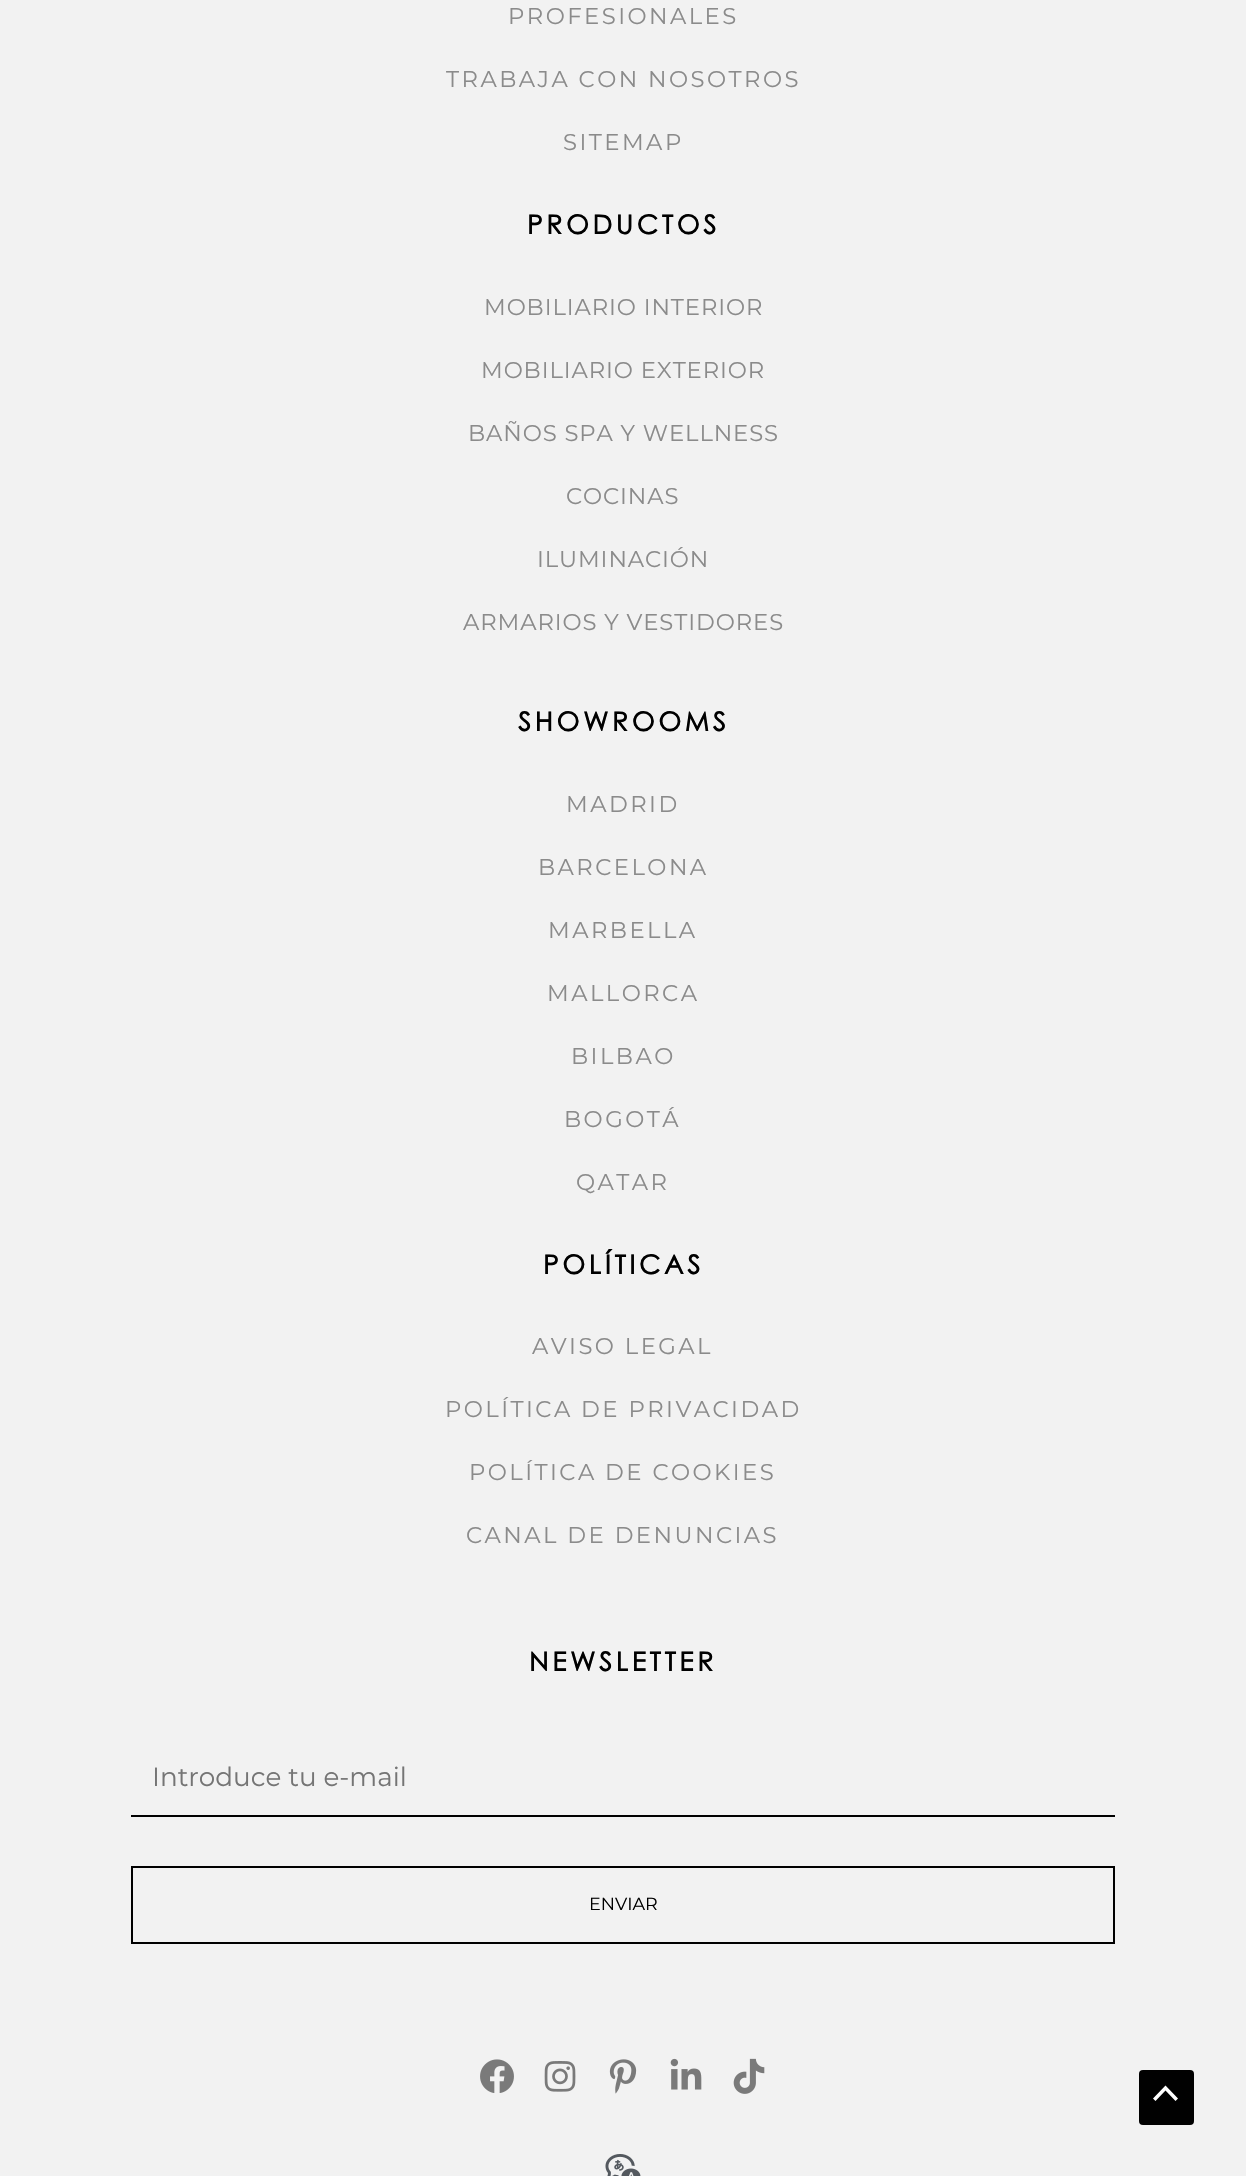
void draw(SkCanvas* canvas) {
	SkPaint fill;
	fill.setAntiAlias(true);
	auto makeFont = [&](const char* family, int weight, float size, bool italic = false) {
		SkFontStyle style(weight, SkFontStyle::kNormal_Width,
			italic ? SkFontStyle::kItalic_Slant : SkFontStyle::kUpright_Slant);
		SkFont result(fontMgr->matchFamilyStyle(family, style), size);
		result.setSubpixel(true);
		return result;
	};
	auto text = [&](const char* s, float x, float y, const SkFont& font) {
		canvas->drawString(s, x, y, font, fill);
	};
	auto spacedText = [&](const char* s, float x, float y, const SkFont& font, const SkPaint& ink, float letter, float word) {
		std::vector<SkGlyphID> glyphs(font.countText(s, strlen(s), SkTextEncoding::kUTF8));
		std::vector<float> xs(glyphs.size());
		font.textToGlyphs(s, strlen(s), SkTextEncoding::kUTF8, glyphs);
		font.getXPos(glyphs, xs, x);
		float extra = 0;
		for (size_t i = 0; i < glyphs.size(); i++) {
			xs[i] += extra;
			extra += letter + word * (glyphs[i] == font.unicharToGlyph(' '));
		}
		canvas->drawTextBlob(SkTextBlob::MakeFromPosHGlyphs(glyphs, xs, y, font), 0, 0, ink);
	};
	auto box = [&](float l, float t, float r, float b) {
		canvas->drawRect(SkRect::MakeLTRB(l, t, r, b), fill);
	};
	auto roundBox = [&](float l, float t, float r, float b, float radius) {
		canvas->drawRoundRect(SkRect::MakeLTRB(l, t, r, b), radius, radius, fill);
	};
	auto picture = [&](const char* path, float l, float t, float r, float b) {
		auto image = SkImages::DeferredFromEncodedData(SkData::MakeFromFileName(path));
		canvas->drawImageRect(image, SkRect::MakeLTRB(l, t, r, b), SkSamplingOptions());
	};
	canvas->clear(0xFFF2F2F2);
	fill.setColor(0xFF000000);
	box(131, 1815, 1115, 1817);
	fill.setStyle(SkPaint::kStroke_Style);
	fill.setStrokeWidth(2);
	canvas->drawRect(SkRect::MakeLTRB(132, 1867, 1114, 1943), fill);
	picture("image0.png", 480, 2059, 514, 2093);
	picture("image1.png", 544, 2061, 576, 2092);
	picture("image2.png", 609, 2059, 637, 2094);
	picture("image3.png", 670, 2058, 702, 2090);
	picture("image4.png", 733, 2058, 765, 2094);
	picture("image5.png", 605, 2154, 641, 2176);
	fill.setStyle(SkPaint::kFill_Style);
	fill.setColor(0xFF010101);
	roundBox(1139, 2070, 1194, 2125, 4);
	fill.setColor(0xFFFFFFFF);
	canvas->drawPath(SkPathBuilder().moveTo(1178, 2098.5f).lineTo(1165.5f, 2085.5f).lineTo(1153, 2098.5f).lineTo(1155.5f, 2101).lineTo(1165.5f, 2090.5f).lineTo(1175.5f, 2101).close().detach(), fill);
	auto font1 = makeFont("Montserrat", 400, 22.75f);
	fill.setColor(0xFF8B8B8B);
	spacedText("PROFESIONALES", 508, 24, font1, fill, 2.45f, 0);
	spacedText("TRABAJA CON NOSOTROS", 446, 87, font1, fill, 2.45f, 0);
	spacedText("SITEMAP", 563, 150, font1, fill, 2.45f, 0);
	auto font2 = makeFont("Century Gothic", 700, 26.25f);
	fill.setColor(0xFF000000);
	spacedText("PRODUCTOS", 527, 234, font2, fill, 3.75f, 0);
	fill.setColor(0xFF8B8B8B);
	spacedText("MOBILIARIO INTERIOR", 484, 315, font1, fill, 0.9f, 0);
	spacedText("MOBILIARIO EXTERIOR", 481, 378, font1, fill, 0.9f, 0);
	spacedText("BAÑOS SPA Y WELLNESS", 468, 441, font1, fill, 0.9f, 0);
	spacedText("COCINAS", 566, 504, font1, fill, 0.9f, 0);
	spacedText("ILUMINACIÓN", 537, 567, font1, fill, 0.9f, 0);
	spacedText("ARMARIOS Y VESTIDORES", 463, 630, font1, fill, 0.9f, 0);
	fill.setColor(0xFF000000);
	spacedText("SHOWROOMS", 518, 731, font2, fill, 3.75f, 0);
	fill.setColor(0xFF8B8B8B);
	spacedText("MADRID", 566, 812, font1, fill, 2.45f, 0);
	spacedText("BARCELONA", 538, 875, font1, fill, 2.45f, 0);
	spacedText("MARBELLA", 548, 938, font1, fill, 2.45f, 0);
	spacedText("MALLORCA", 547, 1001, font1, fill, 2.45f, 0);
	spacedText("BILBAO", 571, 1064, font1, fill, 2.45f, 0);
	spacedText("BOGOTÁ", 564, 1127, font1, fill, 2.45f, 0);
	spacedText("QATAR", 576, 1190, font1, fill, 2.45f, 0);
	fill.setColor(0xFF000000);
	spacedText("POLÍTICAS", 543, 1274, font2, fill, 3.75f, 0);
	fill.setColor(0xFF8B8B8B);
	spacedText("AVISO LEGAL", 532, 1354, font1, fill, 2.45f, 0);
	spacedText("POLÍTICA DE PRIVACIDAD", 445, 1417, font1, fill, 2.45f, 0);
	spacedText("POLÍTICA DE COOKIES", 469, 1480, font1, fill, 2.45f, 0);
	spacedText("CANAL DE DENUNCIAS", 466, 1543, font1, fill, 2.45f, 0);
	fill.setColor(0xFF000000);
	spacedText("NEWSLETTER", 529, 1671, font2, fill, 3.75f, 0);
	auto font3 = makeFont("Montserrat", 400, 26.25f);
	fill.setColor(0xFF757575);
	text("Introduce tu e-mail", 152, 1786, font3);
	auto font4 = makeFont("Montserrat", 400, 17.5f);
	fill.setColor(0xFF000000);
	text("ENVIAR", 589, 1910, font4);
}
